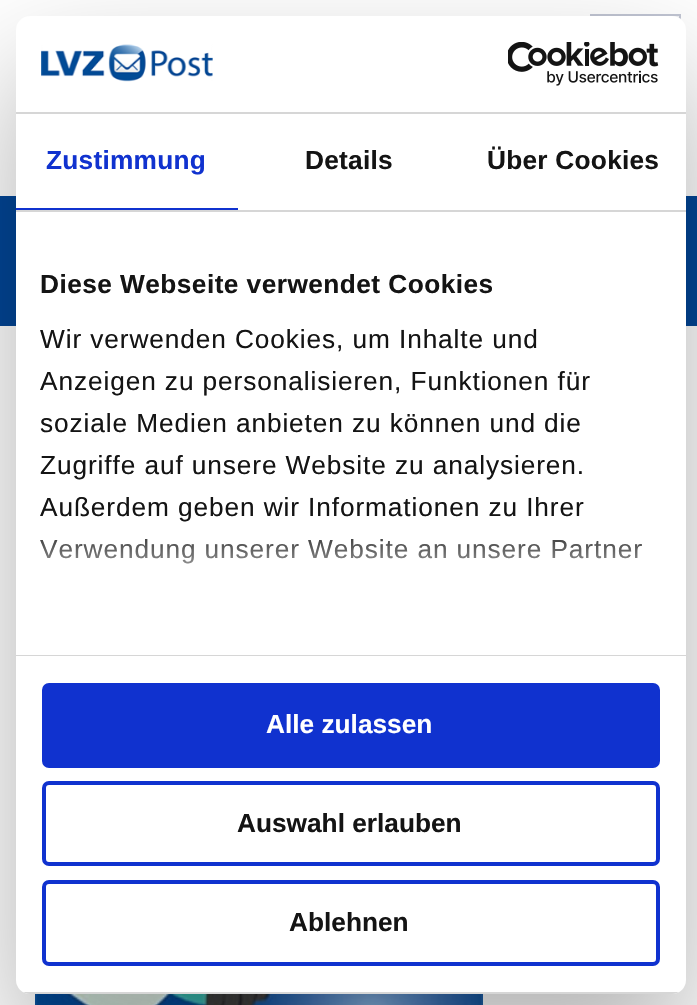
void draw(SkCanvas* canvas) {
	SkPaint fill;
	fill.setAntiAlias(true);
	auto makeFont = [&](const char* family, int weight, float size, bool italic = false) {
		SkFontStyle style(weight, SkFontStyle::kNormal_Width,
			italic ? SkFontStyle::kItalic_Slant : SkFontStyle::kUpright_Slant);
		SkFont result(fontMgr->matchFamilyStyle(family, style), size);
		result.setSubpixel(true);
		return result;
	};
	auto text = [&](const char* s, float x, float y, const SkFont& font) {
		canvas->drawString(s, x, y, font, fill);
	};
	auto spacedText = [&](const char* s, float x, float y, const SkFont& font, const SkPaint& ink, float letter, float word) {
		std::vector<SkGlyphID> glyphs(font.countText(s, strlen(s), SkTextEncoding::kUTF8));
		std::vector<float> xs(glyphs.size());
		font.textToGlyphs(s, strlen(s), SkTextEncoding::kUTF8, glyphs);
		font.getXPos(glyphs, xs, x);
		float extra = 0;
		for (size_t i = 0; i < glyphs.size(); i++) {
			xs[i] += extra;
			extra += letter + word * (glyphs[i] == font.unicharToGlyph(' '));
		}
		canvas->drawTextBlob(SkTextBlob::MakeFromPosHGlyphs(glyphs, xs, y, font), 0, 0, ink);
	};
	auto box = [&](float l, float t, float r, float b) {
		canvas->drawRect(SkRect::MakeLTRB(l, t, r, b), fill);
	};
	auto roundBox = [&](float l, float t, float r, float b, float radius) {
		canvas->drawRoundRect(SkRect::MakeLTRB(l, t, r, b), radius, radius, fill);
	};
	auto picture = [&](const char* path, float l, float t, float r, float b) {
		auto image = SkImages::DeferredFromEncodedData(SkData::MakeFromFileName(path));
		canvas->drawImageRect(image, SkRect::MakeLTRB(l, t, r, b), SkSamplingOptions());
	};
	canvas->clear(0xFFFFFFFF);
	fill.setColor(0xFFF1F2F5);
	box(672, 16, 679, 18);
	fill.setStyle(SkPaint::kStroke_Style);
	fill.setStrokeWidth(2);
	fill.setColor(0xFFC1C5D3);
	canvas->drawRect(SkRect::MakeLTRB(591, 15, 680, 104), fill);
	fill.setStyle(SkPaint::kFill_Style);
	fill.setColor(0xFF064894);
	box(0, 325, 697, 326);
	picture("image0.png", 0, 196, 697, 326);
	picture("image1.png", 35, 994, 483, 1005);
	fill.setColor(0x4D000000);
	fill.setMaskFilter(SkMaskFilter::MakeBlur(kNormal_SkBlurStyle, 59.5f));
	canvas->drawRoundRect(SkRect::MakeLTRB(16, 72, 686, 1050), 14, 14, fill);
	fill.setMaskFilter(nullptr);
	fill.setColor(0xFFFFFFFF);
	roundBox(16, 16, 686, 994, 14);
	fill.setColor(0xFFD6D6D6);
	box(16, 112, 686, 114);
	picture("image2.png", 41, 44, 213, 82);
	picture("image3.png", 508, 42, 659, 86);
	box(16, 210, 686, 212);
	fill.setColor(0xFF1032CF);
	box(16, 208, 238, 210);
	fill.setColor(0xFFD6D6D6);
	box(16, 655, 686, 656);
	canvas->save();
	canvas->clipPath(SkPathBuilder().moveTo(30, 16).lineTo(672, 16).cubicTo(679.5f, 16, 686, 22.5f, 686, 30).lineTo(686, 980).cubicTo(686, 987.5f, 679.5f, 994, 672, 994).lineTo(30, 994).cubicTo(22.5f, 994, 16, 987.5f, 16, 980).lineTo(16, 30).cubicTo(16, 22.5f, 22.5f, 16, 30, 16).close().detach(), true);
	box(16, 992, 686, 994);
	canvas->restore();
	fill.setColor(0xFF1032CF);
	canvas->drawRoundRect(SkRect::MakeLTRB(44, 685, 658, 766), 5, 5, fill);
	fill.setStyle(SkPaint::kStroke_Style);
	fill.setStrokeWidth(4);
	canvas->drawRoundRect(SkRect::MakeLTRB(44, 685, 658, 766), 5, 5, fill);
	canvas->drawRoundRect(SkRect::MakeLTRB(44, 783, 658, 864), 5, 5, fill);
	canvas->drawRoundRect(SkRect::MakeLTRB(44, 882, 658, 964), 5, 5, fill);
	auto font1 = makeFont("Liberation Sans", 700, 26.25f);
	fill.setStyle(SkPaint::kFill_Style);
	spacedText("Zustimmung", 46, 169, font1, fill, 0.25f, 0);
	fill.setColor(0xFF141414);
	spacedText("Details", 305, 169, font1, fill, 0.25f, 0);
	spacedText("Über Cookies", 487, 169, font1, fill, 0.25f, 0);
	spacedText("Diese Webseite verwendet Cookies", 40, 293, font1, fill, 0.45f, 0);
	auto font2 = makeFont("Liberation Sans", 400, 26.25f);
	spacedText("Wir verwenden Cookies, um Inhalte und", 40, 348, font2, fill, 0.9f, 0);
	spacedText("Anzeigen zu personalisieren, Funktionen für", 40, 390, font2, fill, 0.9f, 0);
	spacedText("soziale Medien anbieten zu können und die", 40, 432, font2, fill, 0.9f, 0);
	spacedText("Zugriffe auf unsere Website zu analysieren.", 40, 474, font2, fill, 0.9f, 0);
	spacedText("Außerdem geben wir Informationen zu Ihrer", 40, 516, font2, fill, 0.9f, 0);
	spacedText("Verwendung unserer Website an unsere Partner", 40, 558, font2, fill, 0.9f, 0);
	{
		const SkColor colors[] = {0xFFFFFFFF, 0xCCFFFFFF, 0x00FFFFFF};
		const float stops[] = {0, 0.5f, 1};
		const SkPoint ends[] = {{339, 654}, {339, 522}};
		fill.setShader(SkGradientShader::MakeLinear(ends, colors, stops, 3, SkTileMode::kClamp));
		fill.setAlpha(255);
	}
	box(40, 539, 641, 564);
	fill.setShader(nullptr);
	fill.setColor(0xFFFFFFFF);
	text("Alle zulassen", 266, 733, font1);
	fill.setColor(0xFF141414);
	text("Auswahl erlauben", 237, 832, font1);
	text("Ablehnen", 289, 931, font1);
}
